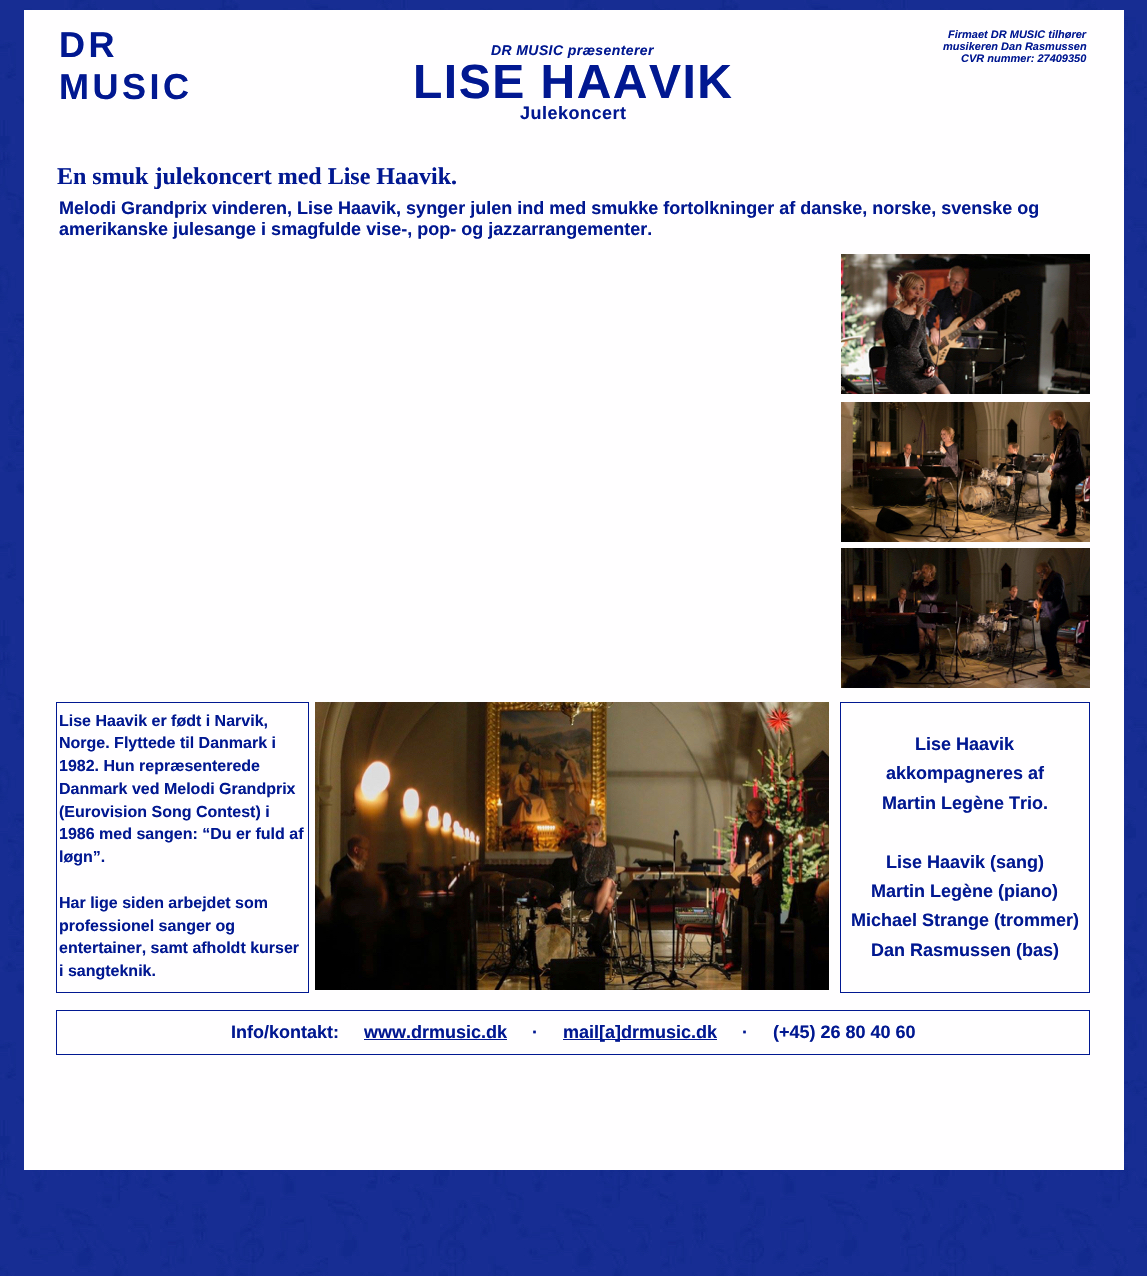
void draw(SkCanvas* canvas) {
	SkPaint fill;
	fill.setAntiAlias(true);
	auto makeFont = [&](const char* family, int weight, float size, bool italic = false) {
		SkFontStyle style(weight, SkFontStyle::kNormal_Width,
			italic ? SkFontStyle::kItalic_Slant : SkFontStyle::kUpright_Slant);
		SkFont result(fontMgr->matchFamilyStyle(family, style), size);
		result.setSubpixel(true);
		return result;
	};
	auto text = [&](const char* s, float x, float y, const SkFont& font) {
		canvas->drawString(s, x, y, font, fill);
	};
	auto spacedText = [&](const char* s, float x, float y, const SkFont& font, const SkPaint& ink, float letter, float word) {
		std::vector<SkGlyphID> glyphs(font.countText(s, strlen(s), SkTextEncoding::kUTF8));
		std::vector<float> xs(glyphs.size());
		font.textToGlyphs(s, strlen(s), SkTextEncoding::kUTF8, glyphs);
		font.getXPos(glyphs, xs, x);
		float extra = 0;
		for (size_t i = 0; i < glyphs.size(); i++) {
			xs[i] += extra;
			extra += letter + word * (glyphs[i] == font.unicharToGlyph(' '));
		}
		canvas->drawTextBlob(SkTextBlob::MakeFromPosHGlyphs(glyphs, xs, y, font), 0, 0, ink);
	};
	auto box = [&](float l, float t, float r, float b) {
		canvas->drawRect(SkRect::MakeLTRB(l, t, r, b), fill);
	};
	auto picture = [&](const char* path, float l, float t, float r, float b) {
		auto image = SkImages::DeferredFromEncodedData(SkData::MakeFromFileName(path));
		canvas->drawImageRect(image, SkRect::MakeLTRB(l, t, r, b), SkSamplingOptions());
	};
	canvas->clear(0xFFFFFFFF);
	picture("image0.png", 0, 0, 1147, 1276);
	fill.setColor(0xFFFFFEFF);
	box(24, 10, 1124, 1170);
	picture("image1.png", 841, 254, 1090, 394);
	picture("image2.png", 841, 402, 1090, 542);
	picture("image3.png", 841, 548, 1090, 688);
	fill.setStyle(SkPaint::kStroke_Style);
	fill.setStrokeWidth(1);
	fill.setColor(0xFF011891);
	canvas->drawRect(SkRect::MakeLTRB(56.5f, 702.5f, 308.5f, 992.5f), fill);
	picture("image4.png", 315, 702, 829, 990);
	canvas->drawRect(SkRect::MakeLTRB(840.5f, 702.5f, 1089.5f, 992.5f), fill);
	canvas->drawRect(SkRect::MakeLTRB(56.5f, 1010.5f, 1089.5f, 1054.5f), fill);
	fill.setStyle(SkPaint::kFill_Style);
	box(364, 1039, 507, 1040);
	box(563, 1039, 717, 1040);
	auto font1 = makeFont("Liberation Sans", 700, 36);
	spacedText("DR", 59, 57, font1, fill, 3.5f, 0);
	spacedText("MUSIC", 59, 99, font1, fill, 3.5f, 0);
	auto font2 = makeFont("Liberation Sans", 700, 14, true);
	spacedText("DR MUSIC præsenterer", 491, 55, font2, fill, 0.4f, 0);
	auto font3 = makeFont("Liberation Sans", 700, 48);
	spacedText("LISE HAAVIK", 413, 98, font3, fill, 1.5f, 0);
	auto font4 = makeFont("Liberation Sans", 700, 18);
	spacedText("Julekoncert", 520, 119, font4, fill, 0.5f, 0);
	auto font5 = makeFont("Liberation Sans", 700, 11, true);
	text("Firmaet DR MUSIC tilhører", 948, 38, font5);
	text("musikeren Dan Rasmussen", 943, 50, font5);
	text("CVR nummer: 27409350", 961, 62, font5);
	auto font6 = makeFont("Liberation Serif", 700, 24);
	text("En smuk julekoncert med Lise Haavik.", 57, 184, font6);
	text("Melodi Grandprix vinderen, Lise Haavik, synger julen ind med smukke fortolkninger af danske, norske, svenske og", 59, 214, font4);
	text("amerikanske julesange i smagfulde vise-, pop- og jazzarrangementer.", 59, 235, font4);
	auto font7 = makeFont("Liberation Sans", 700, 16);
	text("Lise Haavik er født i Narvik,", 59, 726, font7);
	text("Norge. Flyttede til Danmark i", 59, 748, font7);
	text("1982. Hun repræsenterede", 59, 771, font7);
	text("Danmark ved Melodi Grandprix", 59, 794, font7);
	text("(Eurovision Song Contest) i", 59, 817, font7);
	text("1986 med sangen: “Du er fuld af", 59, 839, font7);
	text("løgn”.", 59, 862, font7);
	text("Har lige siden arbejdet som", 59, 908, font7);
	text("professionel sanger og", 59, 931, font7);
	text("entertainer, samt afholdt kurser", 59, 953, font7);
	text("i sangteknik.", 59, 976, font7);
	text("Lise Haavik", 915, 750, font4);
	text("akkompagneres af", 886, 779, font4);
	text("Martin Legène Trio.", 882, 809, font4);
	text("Lise Haavik (sang)", 886, 868, font4);
	text("Martin Legène (piano)", 871, 897, font4);
	text("Michael Strange (trommer)", 851, 926, font4);
	text("Dan Rasmussen (bas)", 871, 956, font4);
	text("Info/kontakt:", 231, 1038, font4);
	text("www.drmusic.dk", 364, 1038, font4);
	text("·", 532, 1038, font4);
	text("mail[a]drmusic.dk", 563, 1038, font4);
	text("·     (+45) 26 80 40 60", 742, 1038, font4);
}
